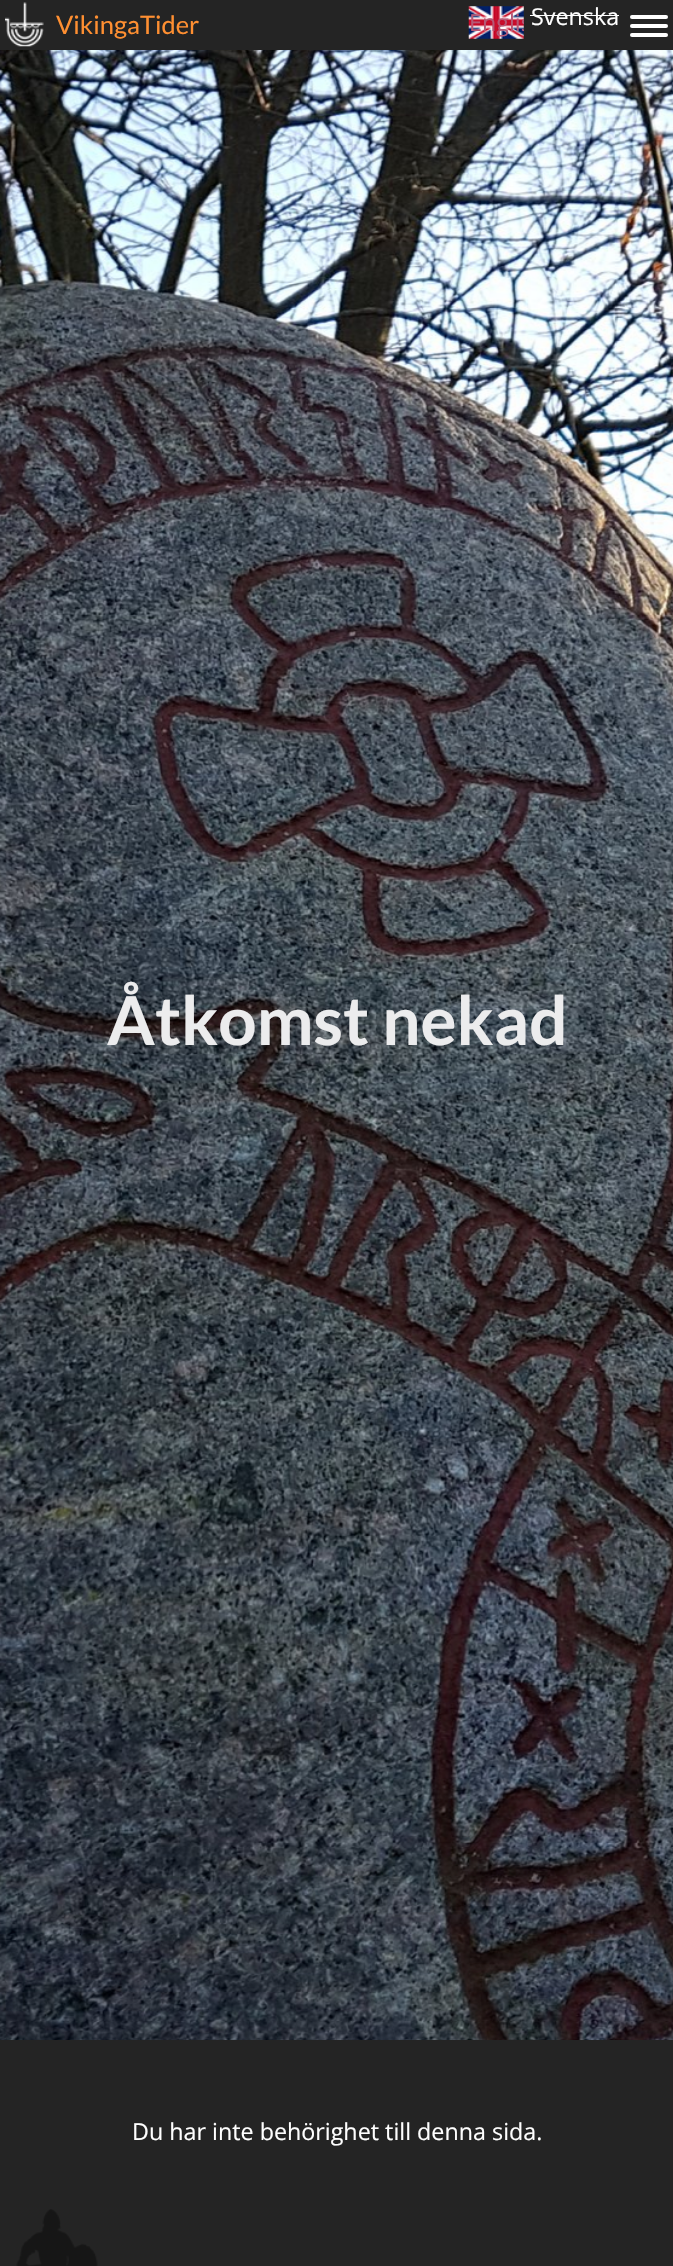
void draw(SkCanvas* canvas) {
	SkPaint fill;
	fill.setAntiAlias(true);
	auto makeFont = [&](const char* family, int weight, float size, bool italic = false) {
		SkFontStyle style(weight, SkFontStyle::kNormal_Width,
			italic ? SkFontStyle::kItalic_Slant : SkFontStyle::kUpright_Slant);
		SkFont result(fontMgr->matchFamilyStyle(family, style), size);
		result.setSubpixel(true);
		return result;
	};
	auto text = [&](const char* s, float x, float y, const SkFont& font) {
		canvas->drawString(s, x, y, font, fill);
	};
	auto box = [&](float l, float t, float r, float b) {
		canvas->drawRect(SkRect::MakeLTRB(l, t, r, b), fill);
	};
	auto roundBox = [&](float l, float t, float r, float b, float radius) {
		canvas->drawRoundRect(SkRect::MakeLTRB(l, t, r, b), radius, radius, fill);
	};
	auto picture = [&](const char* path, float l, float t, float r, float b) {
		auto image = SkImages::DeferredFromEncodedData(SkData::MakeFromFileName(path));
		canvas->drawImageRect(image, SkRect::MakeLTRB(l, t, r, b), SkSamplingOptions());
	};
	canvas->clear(0xFF242424);
	picture("image0.png", 5, 2, 44, 47);
	fill.setColor(0xFFFFFFFF);
	roundBox(630, 24, 668, 28, 2);
	roundBox(630, 15, 668, 19, 2);
	roundBox(630, 33, 668, 37, 2);
	picture("image1.png", 468, 6, 524, 39);
	box(530, 15, 619, 16);
	picture("image2.png", 0, 50, 673, 2040);
	picture("image3.png", 16, 2209, 98, 2266);
	auto font1 = makeFont("Lato", 400, 25.5f);
	fill.setColor(0xFFFF8F31);
	text("VikingaTider", 56, 34, font1);
	canvas->save();
	canvas->clipRect(SkRect::MakeLTRB(469, 6, 524, 39));
	auto font2 = makeFont("Open Sans", 400, 23.3f);
	fill.setColor(0xFFB45A77);
	text("Englis", 469, 31, font2);
	canvas->restore();
	fill.setColor(0xFFFFFFFF);
	text("Svenska", 531, 25, font2);
	auto font3 = makeFont("Lato", 700, 67.5f);
	fill.setColor(0xFFECECED);
	text("Åtkomst nekad", 107, 1045, font3);
	fill.setColor(0xFFFFFFFF);
	text("Du har inte behörighet till denna sida.", 132, 2140, font2);
}
